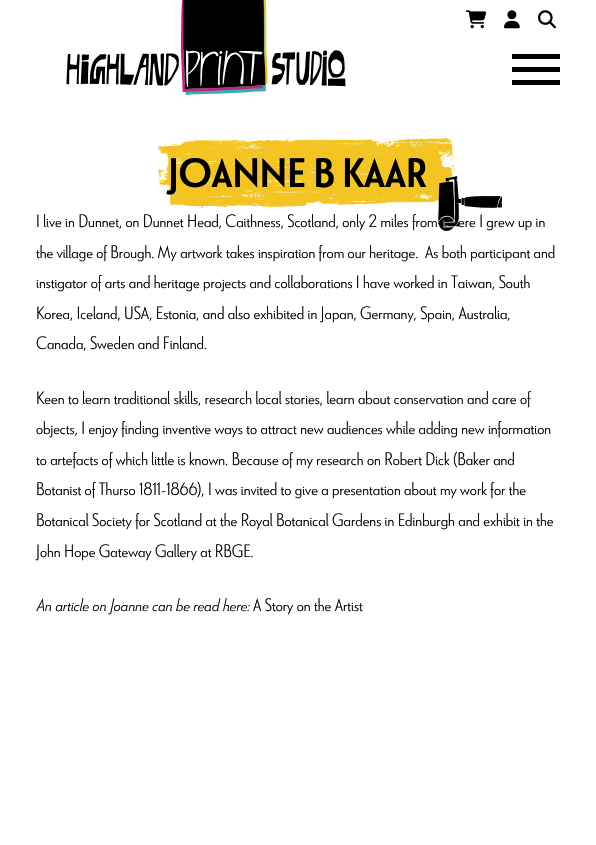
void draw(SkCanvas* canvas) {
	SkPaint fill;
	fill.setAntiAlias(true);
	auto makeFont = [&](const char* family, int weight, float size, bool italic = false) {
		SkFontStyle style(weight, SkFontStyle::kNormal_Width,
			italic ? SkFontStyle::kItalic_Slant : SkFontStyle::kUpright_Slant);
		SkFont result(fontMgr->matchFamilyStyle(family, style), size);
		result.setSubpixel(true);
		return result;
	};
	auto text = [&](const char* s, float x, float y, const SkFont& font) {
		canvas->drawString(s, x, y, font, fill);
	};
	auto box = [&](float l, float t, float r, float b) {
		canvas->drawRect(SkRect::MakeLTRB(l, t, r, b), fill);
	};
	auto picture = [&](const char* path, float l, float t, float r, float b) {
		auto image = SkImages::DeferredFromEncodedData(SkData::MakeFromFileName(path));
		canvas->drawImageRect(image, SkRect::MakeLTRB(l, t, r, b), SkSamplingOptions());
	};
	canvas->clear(0xFFFFFFFF);
	picture("image0.png", 66, 0, 346, 95);
	picture("image1.png", 466, 10, 487, 29);
	picture("image2.png", 504, 10, 520, 29);
	picture("image3.png", 538, 10, 556, 29);
	fill.setColor(0xFF000000);
	box(512, 54, 560, 59);
	box(512, 67, 560, 72);
	box(512, 80, 560, 85);
	picture("image4.png", 158, 138, 455, 208);
	picture("image5.png", 438, 176, 502, 231);
	auto font1 = makeFont("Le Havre", 700, 41);
	text("JOANNE B KAAR", 168, 187, font1);
	auto font2 = makeFont("Le Havre", 300, 18);
	text("I live in Dunnet, on Dunnet Head, Caithness, Scotland, only 2 miles from", 36, 227, font2);
	text("ere I grew up in", 458, 227, font2);
	text("the village of Brough. My artwork takes inspiration from our heritage.  As both participant and", 36, 258, font2);
	text("instigator of arts and heritage projects and collaborations I have worked in Taiwan, South", 36, 288, font2);
	text("Korea, Iceland, USA, Estonia, and also exhibited in Japan, Germany, Spain, Australia,", 36, 319, font2);
	text("Canada, Sweden and Finland.", 36, 349, font2);
	text("Keen to learn traditional skills, research local stories, learn about conservation and care of", 36, 404, font2);
	text("objects, I enjoy finding inventive ways to attract new audiences while adding new information", 36, 434, font2);
	text("to artefacts of which little is known. Because of my research on Robert Dick (Baker and", 36, 465, font2);
	text("Botanist of Thurso 1811-1866), I was invited to give a presentation about my work for the", 36, 495, font2);
	text("Botanical Society for Scotland at the Royal Botanical Gardens in Edinburgh and exhibit in the", 36, 526, font2);
	text("John Hope Gateway Gallery at RBGE.", 36, 557, font2);
	auto font3 = makeFont("Le Havre", 300, 18, true);
	text("An article on Joanne can be read here:", 36, 611, font3);
	text("A Story on the Artist", 253, 611, font2);
}
